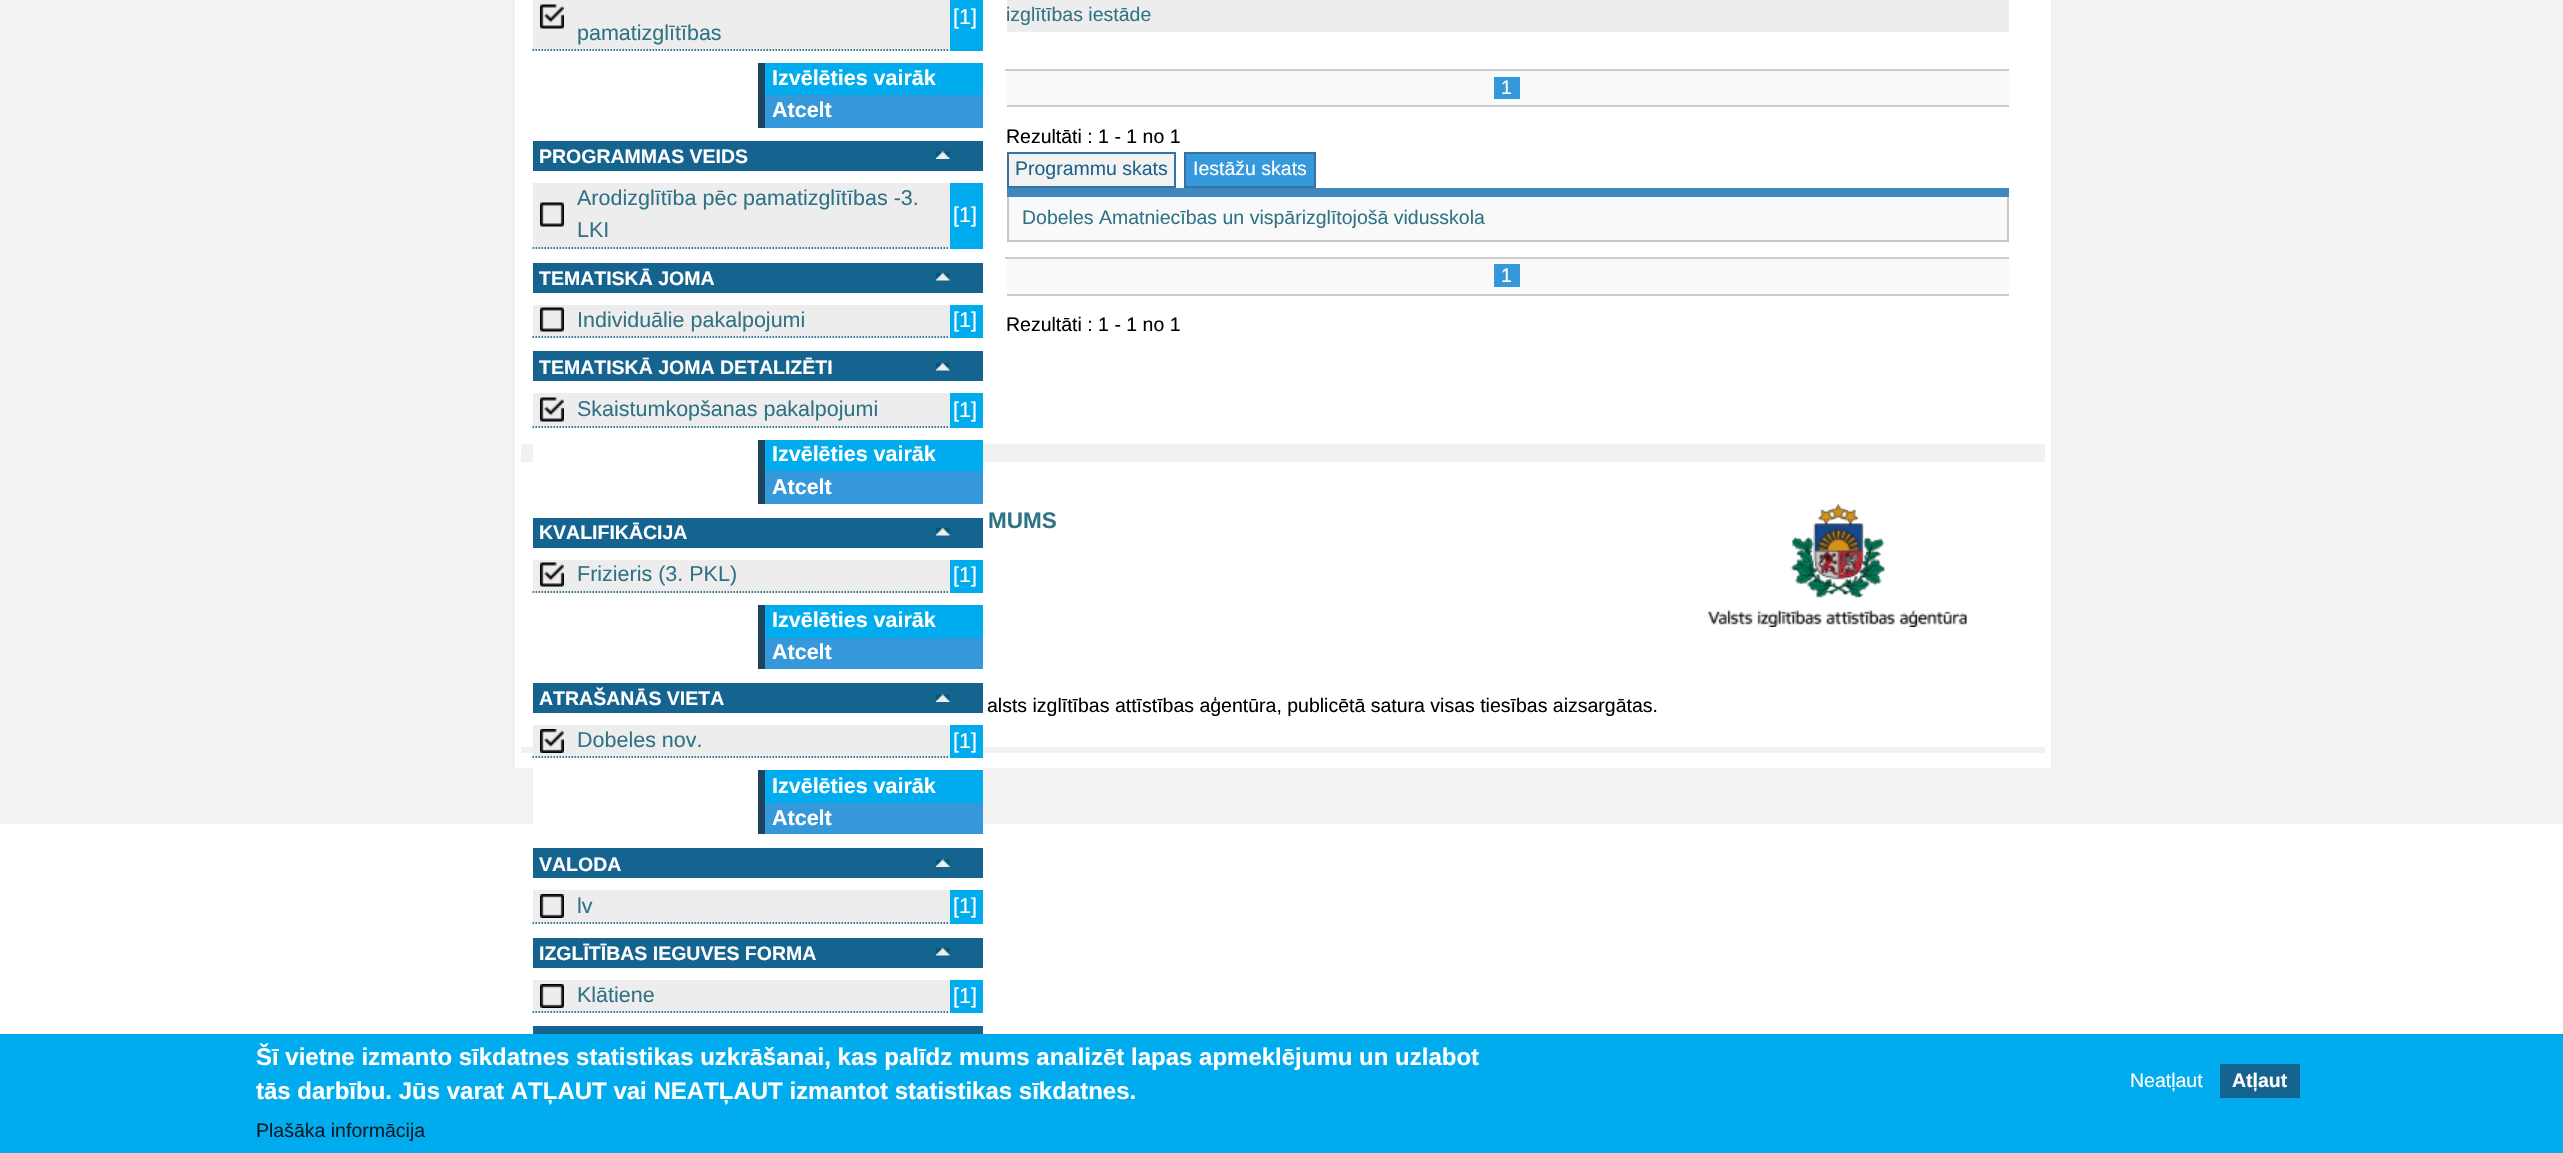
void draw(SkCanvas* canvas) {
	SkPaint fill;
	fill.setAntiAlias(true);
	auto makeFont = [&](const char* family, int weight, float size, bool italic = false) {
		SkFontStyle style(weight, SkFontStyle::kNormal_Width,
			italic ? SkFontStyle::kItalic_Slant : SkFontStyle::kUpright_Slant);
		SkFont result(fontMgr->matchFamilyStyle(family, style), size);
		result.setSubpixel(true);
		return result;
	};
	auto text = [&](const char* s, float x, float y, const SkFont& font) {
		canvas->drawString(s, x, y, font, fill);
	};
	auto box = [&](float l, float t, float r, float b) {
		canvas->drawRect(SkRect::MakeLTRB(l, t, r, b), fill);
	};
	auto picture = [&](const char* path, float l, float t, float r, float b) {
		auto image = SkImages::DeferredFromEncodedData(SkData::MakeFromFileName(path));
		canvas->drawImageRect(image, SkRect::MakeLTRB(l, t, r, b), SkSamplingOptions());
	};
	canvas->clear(0xFFFFFFFF);
	fill.setColor(0xFFF2F2F2);
	box(0, 0, 2563, 824);
	fill.setColor(0xFFFFFFFF);
	box(515, 0, 2051, 768);
	fill.setColor(0xFFF1F1F1);
	box(521, 444, 2045, 462);
	box(521, 747, 2045, 753);
	fill.setColor(0xFFFFFFFF);
	box(533, 444, 983, 824);
	fill.setColor(0xFF00ACED);
	box(950, 0, 983, 51);
	fill.setColor(0xFFEDEDED);
	box(533, 0, 950, 51);
	picture("image0.png", 540, 4, 564, 29);
	fill.setStyle(SkPaint::kStroke_Style);
	fill.setStrokeWidth(1.5f);
	fill.setColor(0xFF01567A);
	fill.setPathEffect(SkDashPathEffect::Make({{1.5f, 1.5f}}, 0));
	canvas->drawPath(SkPathBuilder().moveTo(532.5f, 50).lineTo(949.5f, 50).detach(), fill);
	fill.setPathEffect(nullptr);
	fill.setStyle(SkPaint::kFill_Style);
	fill.setColor(0xFF1F425D);
	box(758, 63, 765, 128);
	fill.setColor(0xFF00ACED);
	box(765, 63, 983, 95);
	fill.setColor(0xFF3498DB);
	box(765, 95, 983, 128);
	fill.setColor(0xFF156490);
	box(533, 141, 983, 171);
	picture("image1.png", 936, 151, 950, 159);
	fill.setColor(0xFFEDEDED);
	box(533, 183, 950, 249);
	picture("image2.png", 540, 202, 564, 227);
	fill.setStyle(SkPaint::kStroke_Style);
	fill.setColor(0xFF01567A);
	fill.setPathEffect(SkDashPathEffect::Make({{1.5f, 1.5f}}, 0));
	canvas->drawPath(SkPathBuilder().moveTo(532.5f, 248).lineTo(949.5f, 248).detach(), fill);
	fill.setPathEffect(nullptr);
	fill.setStyle(SkPaint::kFill_Style);
	fill.setColor(0xFF00ACED);
	box(950, 183, 983, 249);
	fill.setColor(0xFF156490);
	box(533, 263, 983, 293);
	picture("image3.png", 936, 273, 950, 281);
	fill.setColor(0xFFEDEDED);
	box(533, 305, 950, 338);
	picture("image2.png", 540, 307, 564, 332);
	fill.setStyle(SkPaint::kStroke_Style);
	fill.setColor(0xFF01567A);
	fill.setPathEffect(SkDashPathEffect::Make({{1.5f, 1.5f}}, 0));
	canvas->drawPath(SkPathBuilder().moveTo(532.5f, 337).lineTo(949.5f, 337).detach(), fill);
	fill.setPathEffect(nullptr);
	fill.setStyle(SkPaint::kFill_Style);
	fill.setColor(0xFF00ACED);
	box(950, 305, 983, 338);
	fill.setColor(0xFF156490);
	box(533, 351, 983, 381);
	picture("image3.png", 936, 363, 950, 371);
	fill.setColor(0xFFEDEDED);
	box(533, 393, 950, 428);
	picture("image0.png", 540, 397, 564, 422);
	fill.setStyle(SkPaint::kStroke_Style);
	fill.setColor(0xFF01567A);
	fill.setPathEffect(SkDashPathEffect::Make({{1.5f, 1.5f}}, 0));
	canvas->drawPath(SkPathBuilder().moveTo(532.5f, 427).lineTo(949.5f, 427).detach(), fill);
	fill.setPathEffect(nullptr);
	fill.setStyle(SkPaint::kFill_Style);
	fill.setColor(0xFF00ACED);
	box(950, 393, 983, 428);
	fill.setColor(0xFF1F425D);
	box(758, 440, 765, 504);
	fill.setColor(0xFF00ACED);
	box(765, 440, 983, 471);
	fill.setColor(0xFF3498DB);
	box(765, 471, 983, 504);
	fill.setColor(0xFF156490);
	box(533, 518, 983, 548);
	picture("image3.png", 936, 528, 950, 536);
	fill.setColor(0xFFEDEDED);
	box(533, 560, 950, 593);
	picture("image0.png", 540, 562, 564, 587);
	fill.setStyle(SkPaint::kStroke_Style);
	fill.setColor(0xFF01567A);
	fill.setPathEffect(SkDashPathEffect::Make({{1.5f, 1.5f}}, 0));
	canvas->drawPath(SkPathBuilder().moveTo(532.5f, 592).lineTo(949.5f, 592).detach(), fill);
	fill.setPathEffect(nullptr);
	fill.setStyle(SkPaint::kFill_Style);
	fill.setColor(0xFF00ACED);
	box(950, 560, 983, 593);
	fill.setColor(0xFF1F425D);
	box(758, 605, 765, 669);
	fill.setColor(0xFF00ACED);
	box(765, 605, 983, 638);
	fill.setColor(0xFF3498DB);
	box(765, 638, 983, 669);
	fill.setColor(0xFF156490);
	box(533, 683, 983, 713);
	picture("image1.png", 936, 694, 950, 702);
	fill.setColor(0xFFEDEDED);
	box(533, 725, 950, 758);
	picture("image4.png", 540, 729, 564, 753);
	fill.setStyle(SkPaint::kStroke_Style);
	fill.setColor(0xFF01567A);
	fill.setPathEffect(SkDashPathEffect::Make({{1.5f, 1.5f}}, 0));
	canvas->drawPath(SkPathBuilder().moveTo(532.5f, 757).lineTo(949.5f, 757).detach(), fill);
	fill.setPathEffect(nullptr);
	fill.setStyle(SkPaint::kFill_Style);
	fill.setColor(0xFF00ACED);
	box(950, 725, 983, 758);
	fill.setColor(0xFF1F425D);
	box(758, 770, 765, 834);
	fill.setColor(0xFF00ACED);
	box(765, 770, 983, 803);
	fill.setColor(0xFF3498DB);
	box(765, 803, 983, 834);
	fill.setColor(0xFF156490);
	box(533, 848, 983, 878);
	picture("image1.png", 936, 859, 950, 867);
	fill.setColor(0xFFEDEDED);
	box(533, 890, 950, 924);
	picture("image5.png", 540, 894, 564, 918);
	fill.setStyle(SkPaint::kStroke_Style);
	fill.setColor(0xFF01567A);
	fill.setPathEffect(SkDashPathEffect::Make({{1.5f, 1.5f}}, 0));
	canvas->drawPath(SkPathBuilder().moveTo(532.5f, 923).lineTo(949.5f, 923).detach(), fill);
	fill.setPathEffect(nullptr);
	fill.setStyle(SkPaint::kFill_Style);
	fill.setColor(0xFF00ACED);
	box(950, 890, 983, 924);
	fill.setColor(0xFF156490);
	box(533, 938, 983, 968);
	picture("image3.png", 936, 948, 950, 956);
	fill.setColor(0xFFEDEDED);
	box(533, 980, 950, 1013);
	picture("image5.png", 540, 984, 564, 1008);
	fill.setStyle(SkPaint::kStroke_Style);
	fill.setColor(0xFF01567A);
	fill.setPathEffect(SkDashPathEffect::Make({{1.5f, 1.5f}}, 0));
	canvas->drawPath(SkPathBuilder().moveTo(532.5f, 1012).lineTo(949.5f, 1012).detach(), fill);
	fill.setPathEffect(nullptr);
	fill.setStyle(SkPaint::kFill_Style);
	fill.setColor(0xFF00ACED);
	box(950, 980, 983, 1013);
	fill.setColor(0xFF156490);
	box(533, 1026, 983, 1034);
	fill.setColor(0xFFEDEDED);
	box(1007, 0, 2009, 32);
	fill.setColor(0xFFCCCCCC);
	box(1007, 105, 2009, 107);
	box(1005, 69, 2009, 71);
	fill.setColor(0xFFF9F9F9);
	box(1007, 71, 2009, 105);
	fill.setColor(0xFF3498DB);
	box(1494, 77, 1520, 99);
	fill.setColor(0xFFF2F2F2);
	canvas->drawRect(SkRect::MakeLTRB(1008, 153, 1175, 187), fill);
	fill.setStyle(SkPaint::kStroke_Style);
	fill.setStrokeWidth(2);
	fill.setColor(0xFF3473A2);
	canvas->drawRect(SkRect::MakeLTRB(1008, 153, 1175, 187), fill);
	fill.setStyle(SkPaint::kFill_Style);
	fill.setColor(0xFF3599DB);
	canvas->drawRect(SkRect::MakeLTRB(1185, 153, 1315, 187), fill);
	fill.setStyle(SkPaint::kStroke_Style);
	fill.setColor(0xFF3473A2);
	canvas->drawRect(SkRect::MakeLTRB(1185, 153, 1315, 187), fill);
	fill.setStyle(SkPaint::kFill_Style);
	fill.setColor(0xFFC9C9C9);
	box(2007, 191, 2009, 242);
	box(1007, 240, 2009, 242);
	box(1007, 191, 1009, 242);
	fill.setColor(0xFF3E88BF);
	box(1007, 188, 2009, 197);
	fill.setColor(0xFFF9F9F9);
	box(1009, 197, 2007, 240);
	fill.setColor(0xFFCCCCCC);
	box(1007, 294, 2009, 296);
	box(1005, 257, 2009, 259);
	fill.setColor(0xFFF9F9F9);
	box(1007, 259, 2009, 294);
	fill.setColor(0xFF3498DB);
	box(1494, 264, 1520, 287);
	picture("image6.png", 1708, 504, 1967, 627);
	fill.setColor(0xFF00ACED);
	box(0, 1034, 2563, 1153);
	fill.setColor(0xFF156490);
	box(2220, 1064, 2300, 1098);
	auto font1 = makeFont("Liberation Sans", 400, 21.5f);
	fill.setColor(0xFFFFFFFF);
	text("[1]", 953, 24, font1);
	fill.setColor(0xFF307386);
	text("pamatizglītības", 577, 40, font1);
	auto font2 = makeFont("Liberation Sans", 700, 21.5f);
	fill.setColor(0xFFFFFFFF);
	text("Izvēlēties vairāk", 772, 85, font2);
	text("Atcelt", 772, 117, font2);
	auto font3 = makeFont("Liberation Sans", 700, 19.5f);
	text("PROGRAMMAS VEIDS", 539, 163, font3);
	fill.setColor(0xFF307386);
	text("Arodizglītība pēc pamatizglītības -3.", 577, 205, font1);
	text("LKI", 577, 237, font1);
	fill.setColor(0xFFFFFFFF);
	text("[1]", 953, 222, font1);
	text("TEMATISKĀ JOMA", 539, 285, font3);
	fill.setColor(0xFF307386);
	text("Individuālie pakalpojumi", 577, 327, font1);
	fill.setColor(0xFFFFFFFF);
	text("[1]", 953, 327, font1);
	text("TEMATISKĀ JOMA DETALIZĒTI", 539, 374, font3);
	fill.setColor(0xFF307386);
	text("Skaistumkopšanas pakalpojumi", 577, 416, font1);
	fill.setColor(0xFFFFFFFF);
	text("[1]", 953, 417, font1);
	text("Izvēlēties vairāk", 772, 461, font2);
	text("Atcelt", 772, 494, font2);
	text("KVALIFIKĀCIJA", 539, 539, font3);
	fill.setColor(0xFF307386);
	text("Frizieris (3. PKL)", 577, 581, font1);
	fill.setColor(0xFFFFFFFF);
	text("[1]", 953, 582, font1);
	text("Izvēlēties vairāk", 772, 627, font2);
	text("Atcelt", 772, 659, font2);
	text("ATRAŠANĀS VIETA", 539, 705, font3);
	fill.setColor(0xFF307386);
	text("Dobeles nov.", 577, 747, font1);
	fill.setColor(0xFFFFFFFF);
	text("[1]", 953, 748, font1);
	text("Izvēlēties vairāk", 772, 793, font2);
	text("Atcelt", 772, 825, font2);
	text("VALODA", 539, 871, font3);
	fill.setColor(0xFF307386);
	text("lv", 577, 913, font1);
	fill.setColor(0xFFFFFFFF);
	text("[1]", 953, 913, font1);
	text("IZGLĪTĪBAS IEGUVES FORMA", 539, 960, font3);
	fill.setColor(0xFF307386);
	text("Klātiene", 577, 1002, font1);
	fill.setColor(0xFFFFFFFF);
	text("[1]", 953, 1003, font1);
	auto font4 = makeFont("Liberation Sans", 400, 19.5f);
	fill.setColor(0xFF307386);
	text("izglītības iestāde", 1006, 21, font4);
	fill.setColor(0xFFFFFFFF);
	text("1", 1501, 94, font4);
	fill.setColor(0xFF000000);
	text("Rezultāti : 1 - 1 no 1", 1006, 143, font4);
	fill.setColor(0xFF1F628D);
	text("Programmu skats", 1015, 175, font4);
	fill.setColor(0xFFFFFFFF);
	text("Iestāžu skats", 1193, 175, font4);
	fill.setColor(0xFF307386);
	text("Dobeles Amatniecības un vispārizglītojošā vidusskola", 1022, 224, font4);
	fill.setColor(0xFFFFFFFF);
	text("1", 1501, 282, font4);
	fill.setColor(0xFF000000);
	text("Rezultāti : 1 - 1 no 1", 1006, 331, font4);
	auto font5 = makeFont("Liberation Sans", 700, 22.5f);
	fill.setColor(0xFF307386);
	text("MUMS", 988, 528, font5);
	fill.setColor(0xFF000000);
	text("alsts izglītības attīstības aģentūra, publicētā satura visas tiesības aizsargātas.", 987, 712, font4);
	auto font6 = makeFont("Liberation Sans", 700, 24);
	fill.setColor(0xFFFFFFFF);
	text("Šī vietne izmanto sīkdatnes statistikas uzkrāšanai, kas palīdz mums analizēt lapas apmeklējumu un uzlabot", 256, 1065, font6);
	text("tās darbību. Jūs varat ATĻAUT vai NEATĻAUT izmantot statistikas sīkdatnes.", 256, 1099, font6);
	fill.setColor(0xFF061B27);
	text("Plašāka informācija", 256, 1137, font4);
	fill.setColor(0xFFFFFFFF);
	text("Neatļaut", 2130, 1087, font4);
	text("Atļaut", 2232, 1087, font3);
}
